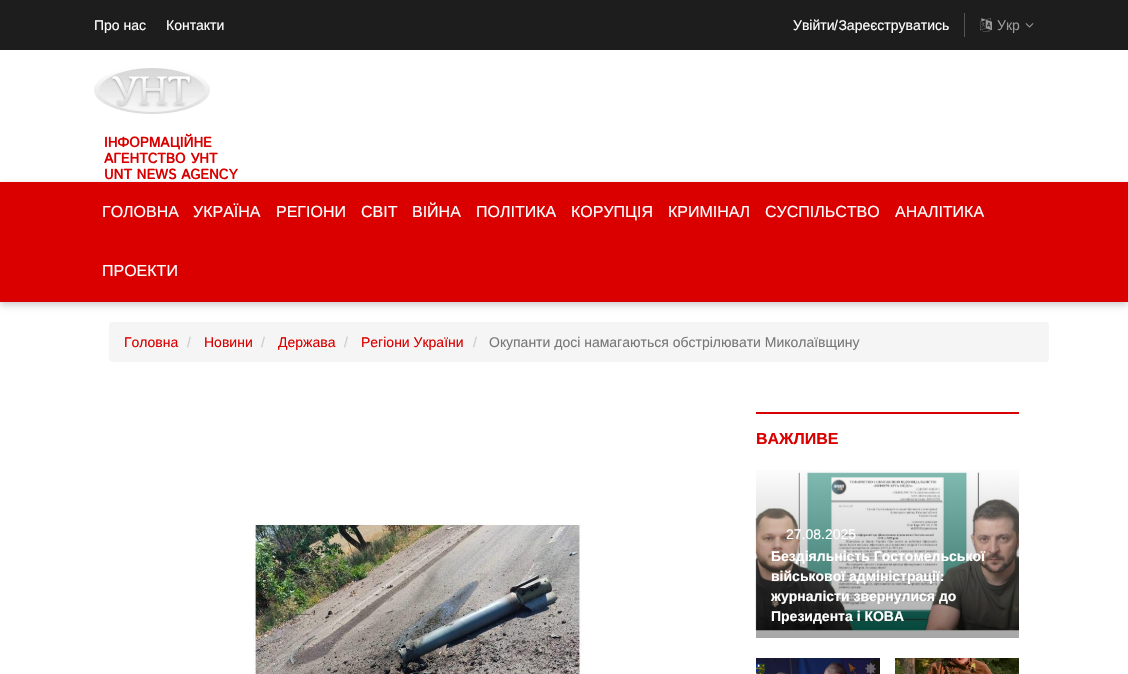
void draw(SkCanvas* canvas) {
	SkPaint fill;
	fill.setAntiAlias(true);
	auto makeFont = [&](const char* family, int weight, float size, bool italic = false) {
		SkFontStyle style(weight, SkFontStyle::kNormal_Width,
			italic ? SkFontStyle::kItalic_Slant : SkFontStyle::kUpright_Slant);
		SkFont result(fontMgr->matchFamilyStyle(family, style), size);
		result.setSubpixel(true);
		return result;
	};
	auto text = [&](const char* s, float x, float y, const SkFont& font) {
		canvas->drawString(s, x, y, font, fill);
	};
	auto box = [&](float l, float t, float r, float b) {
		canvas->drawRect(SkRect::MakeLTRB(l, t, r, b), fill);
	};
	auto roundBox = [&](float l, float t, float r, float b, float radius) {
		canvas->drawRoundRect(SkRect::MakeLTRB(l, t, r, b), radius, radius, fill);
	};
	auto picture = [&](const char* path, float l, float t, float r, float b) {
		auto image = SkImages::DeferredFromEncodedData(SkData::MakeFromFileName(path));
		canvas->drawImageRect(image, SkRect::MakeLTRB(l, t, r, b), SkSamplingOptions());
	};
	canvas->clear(0xFFFFFFFF);
	fill.setColor(0xFF1D1D1D);
	box(0, 0, 1128, 50);
	fill.setColor(0xFF555555);
	box(964, 13, 965, 37);
	picture("image0.png", 980, 18, 992, 32);
	picture("image1.png", 1025, 23, 1034, 28);
	picture("image2.png", 94, 68, 210, 114);
	fill.setColor(0x33000000);
	fill.setMaskFilter(SkMaskFilter::MakeBlur(kNormal_SkBlurStyle, 3.5f));
	canvas->drawRect(SkRect::MakeLTRB(0, 185, 1128, 305), fill);
	fill.setMaskFilter(nullptr);
	fill.setColor(0xFFDA0000);
	box(0, 182, 1128, 302);
	fill.setColor(0xFFF5F5F5);
	roundBox(109, 322, 1049, 362, 4);
	picture("image3.png", 249, 520, 582, 674);
	fill.setColor(0xFFDA0000);
	box(756, 412, 1019, 414);
	picture("image4.png", 755, 470, 1019, 632);
	{
		const SkColor colors[] = {0x59FFFFFF, 0x59000000};
		const float stops[] = {0, 1};
		const SkPoint ends[] = {{888, 465}, {888, 638}};
		fill.setShader(SkGradientShader::MakeLinear(ends, colors, stops, 2, SkTileMode::kClamp));
		fill.setAlpha(255);
	}
	box(756, 470, 1019, 638);
	picture("image5.png", 756, 658, 880, 674);
	picture("image6.png", 895, 658, 1019, 674);
	auto font1 = makeFont("Liberation Sans", 400, 14);
	fill.setShader(nullptr);
	fill.setColor(0xFFFFFFFF);
	text("Про нас", 94, 30, font1);
	text("Контакти", 166, 30, font1);
	text("/", 834, 30, font1);
	text("Увійти Зареєструватись", 793, 30, font1);
	fill.setColor(0xFF999999);
	text("Укр", 997, 30, font1);
	auto font2 = makeFont("Istok Web", 700, 14);
	fill.setColor(0xFFDA0000);
	text("ІНФОРМАЦІЙНЕ", 104, 147, font2);
	text("АГЕНТСТВО УНТ", 104, 163, font2);
	text("UNT NEWS AGENCY", 104, 179, font2);
	auto font3 = makeFont("Liberation Sans", 400, 16);
	fill.setColor(0xFFFFFFFF);
	text("ГОЛОВНА", 102, 217, font3);
	text("УКРАЇНА", 193, 217, font3);
	text("РЕГІОНИ", 276, 217, font3);
	text("СВІТ", 361, 217, font3);
	text("ВІЙНА", 412, 217, font3);
	text("ПОЛІТИКА", 476, 217, font3);
	text("КОРУПЦІЯ", 571, 217, font3);
	text("КРИМІНАЛ", 668, 217, font3);
	text("СУСПІЛЬСТВО", 765, 217, font3);
	text("АНАЛІТИКА", 895, 217, font3);
	text("ПРОЕКТИ", 102, 276, font3);
	fill.setColor(0xFFDA0000);
	text("Головна", 124, 347, font1);
	fill.setColor(0xFFCCCCCC);
	text("/", 187, 347, font1);
	fill.setColor(0xFFDA0000);
	text("Новини", 204, 347, font1);
	fill.setColor(0xFFCCCCCC);
	text("/", 261, 347, font1);
	fill.setColor(0xFFDA0000);
	text("Держава", 278, 347, font1);
	fill.setColor(0xFFCCCCCC);
	text("/", 344, 347, font1);
	fill.setColor(0xFFDA0000);
	text("Регіони України", 361, 347, font1);
	fill.setColor(0xFFCCCCCC);
	text("/", 473, 347, font1);
	fill.setColor(0xFF777777);
	text("Окупанти досі намагаються обстрілювати Миколаївщину", 489, 347, font1);
	auto font4 = makeFont("Liberation Sans", 700, 16);
	fill.setColor(0xFFDA0000);
	text("ВАЖЛИВЕ", 756, 444, font4);
	fill.setColor(0xFFFFFFFF);
	text("27.08.2025", 786, 539, font1);
	auto font5 = makeFont("Liberation Sans", 700, 14);
	text("Бездіяльність Гостомельської", 771, 561, font5);
	text("військової адміністрації:", 771, 581, font5);
	text("журналісти звернулися до", 771, 601, font5);
	text("Президента і КОВА", 771, 621, font5);
}
